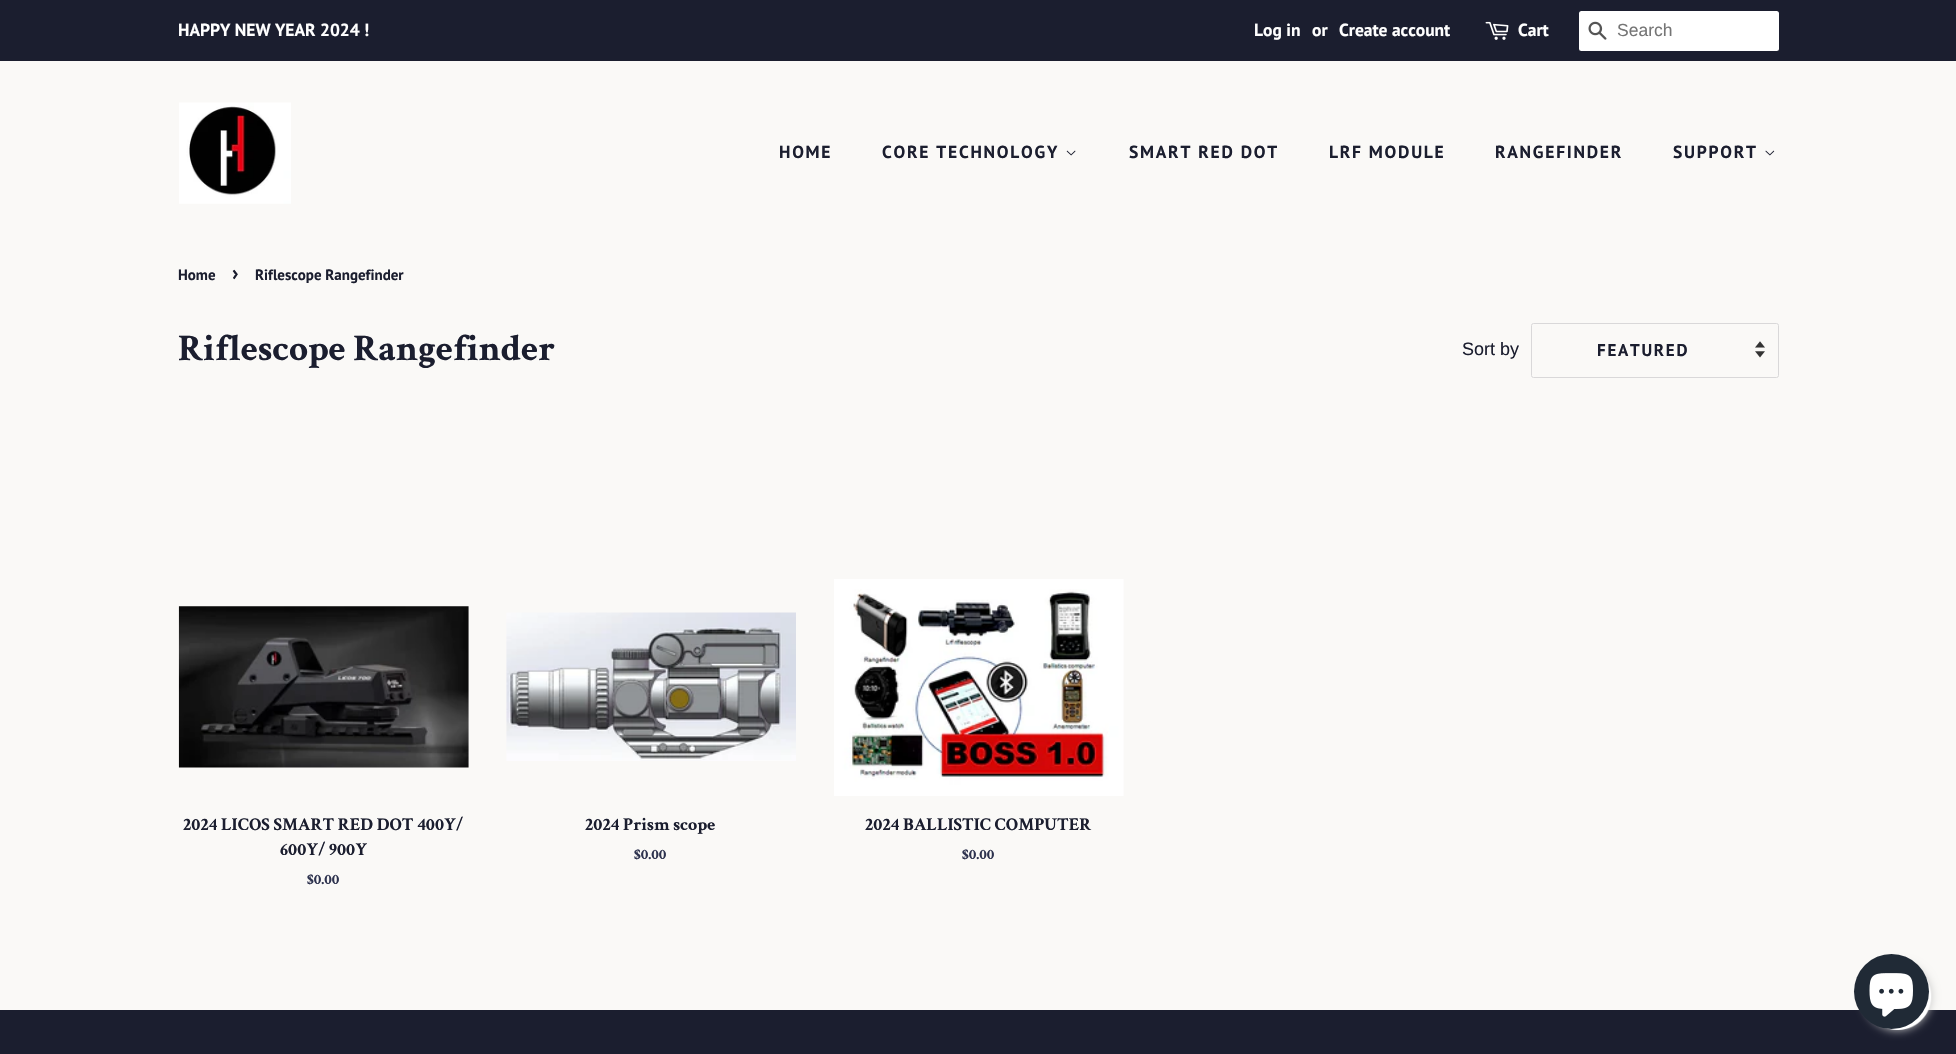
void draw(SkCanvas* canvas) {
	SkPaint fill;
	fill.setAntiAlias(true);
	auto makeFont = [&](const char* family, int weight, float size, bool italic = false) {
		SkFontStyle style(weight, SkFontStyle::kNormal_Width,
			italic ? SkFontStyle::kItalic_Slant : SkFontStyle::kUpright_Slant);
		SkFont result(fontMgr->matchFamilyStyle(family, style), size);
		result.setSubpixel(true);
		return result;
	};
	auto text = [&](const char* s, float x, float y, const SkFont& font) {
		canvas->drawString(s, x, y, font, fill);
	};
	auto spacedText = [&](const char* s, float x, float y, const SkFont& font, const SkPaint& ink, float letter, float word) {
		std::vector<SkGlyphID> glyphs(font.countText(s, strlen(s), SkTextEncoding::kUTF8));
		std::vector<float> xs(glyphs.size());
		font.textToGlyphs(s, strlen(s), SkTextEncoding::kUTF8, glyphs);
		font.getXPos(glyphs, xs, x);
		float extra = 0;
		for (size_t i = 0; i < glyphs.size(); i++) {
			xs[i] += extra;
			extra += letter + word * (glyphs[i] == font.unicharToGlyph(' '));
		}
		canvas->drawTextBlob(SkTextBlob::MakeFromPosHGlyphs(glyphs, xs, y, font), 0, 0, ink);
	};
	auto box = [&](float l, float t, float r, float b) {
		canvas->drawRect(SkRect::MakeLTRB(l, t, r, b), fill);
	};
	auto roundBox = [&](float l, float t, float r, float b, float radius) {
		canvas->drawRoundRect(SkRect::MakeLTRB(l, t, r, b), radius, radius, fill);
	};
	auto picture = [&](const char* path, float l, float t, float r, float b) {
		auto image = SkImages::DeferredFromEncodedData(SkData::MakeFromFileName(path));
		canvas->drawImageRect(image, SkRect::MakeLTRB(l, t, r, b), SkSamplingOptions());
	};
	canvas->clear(0xFFFAF9F7);
	fill.setColor(0xFF1B1E2F);
	box(0, 0, 1956, 61);
	picture("image0.png", 1485, 21, 1509, 40);
	fill.setColor(0xFFFFFFFF);
	roundBox(1579, 11, 1779, 51, 2.5f);
	picture("image1.png", 1588, 21, 1607, 40);
	picture("image2.png", 179, 102, 291, 204);
	picture("image3.png", 1066, 150, 1076, 156);
	picture("image4.png", 1765, 150, 1775, 156);
	picture("image5.png", 1755, 341, 1765, 358);
	fill.setStyle(SkPaint::kStroke_Style);
	fill.setStrokeWidth(1);
	fill.setColor(0xFFD9D8D9);
	canvas->drawRoundRect(SkRect::MakeLTRB(1531.5f, 323.5f, 1778.5f, 377.5f), 2, 2, fill);
	picture("image6.png", 178, 606, 469, 768);
	picture("image7.png", 506, 612, 796, 761);
	picture("image8.png", 834, 579, 1124, 796);
	fill.setStyle(SkPaint::kFill_Style);
	fill.setColor(0xFF1B1E2F);
	box(0, 1010, 1956, 1054);
	fill.setColor(0xFFC2C2C2);
	fill.setMaskFilter(SkMaskFilter::MakeBlur(kNormal_SkBlurStyle, 5));
	canvas->drawRoundRect(SkRect::MakeLTRB(1864, 963, 1931, 1030), 33.5f, 33.5f, fill);
	fill.setMaskFilter(nullptr);
	picture("image9.png", 1882, 976, 1932, 1030);
	fill.setColor(0xFF202A36);
	canvas->drawCircle(1891.5f, 991.5f, 37.5f, fill);
	picture("image10.png", 1869, 973, 1913, 1017);
	auto font1 = makeFont("PT Sans", 700, 17.5f);
	fill.setColor(0xFFFFFFFF);
	text("HAPPY NEW YEAR 2024 !", 178, 36, font1);
	text("Log in", 1254, 36, font1);
	text("or", 1312, 36, font1);
	text("Create account", 1339, 36, font1);
	text("Cart", 1518, 36, font1);
	auto font2 = makeFont("Liberation Sans", 400, 17.5f);
	fill.setColor(0xFF757575);
	text("Search", 1617, 36, font2);
	fill.setColor(0xFF1B1E2F);
	spacedText("HOME", 779, 158, font1, fill, 1.75f, 0);
	spacedText("CORE TECHNOLOGY", 882, 158, font1, fill, 1.75f, 0);
	spacedText("SMART RED DOT", 1129, 158, font1, fill, 1.75f, 0);
	spacedText("LRF MODULE", 1329, 158, font1, fill, 1.75f, 0);
	spacedText("RANGEFINDER", 1495, 158, font1, fill, 1.75f, 0);
	spacedText("SUPPORT", 1673, 158, font1, fill, 1.75f, 0);
	auto font3 = makeFont("PT Sans", 700, 15);
	text("Home", 178, 280, font3);
	auto font4 = makeFont("PT Sans", 700, 21);
	text("›", 232, 280, font4);
	text("Riflescope Rangefinder", 255, 280, font3);
	auto font5 = makeFont("Crimson Text", 700, 37.5f);
	text("Riflescope Rangefinder", 178, 360, font5);
	auto font6 = makeFont("Liberation Sans", 400, 18);
	text("Sort by", 1462, 355, font6);
	auto font7 = makeFont("PT Sans", 700, 17);
	spacedText("FEATURED", 1597, 356, font7, fill, 1.75f, 0);
	auto font8 = makeFont("Crimson Text", 700, 18);
	text("2024 LICOS SMART RED DOT 400Y/", 183, 830, font8);
	text("600Y/ 900Y", 280, 855, font8);
	auto font9 = makeFont("Crimson Text", 700, 15);
	fill.setColor(0xFF2E334F);
	text("$0.00", 307, 884, font9);
	fill.setColor(0xFF1B1E2F);
	text("2024 Prism scope", 585, 830, font8);
	fill.setColor(0xFF2E334F);
	text("$0.00", 634, 859, font9);
	fill.setColor(0xFF1B1E2F);
	text("2024 BALLISTIC COMPUTER", 865, 830, font8);
	fill.setColor(0xFF2E334F);
	text("$0.00", 962, 859, font9);
}
